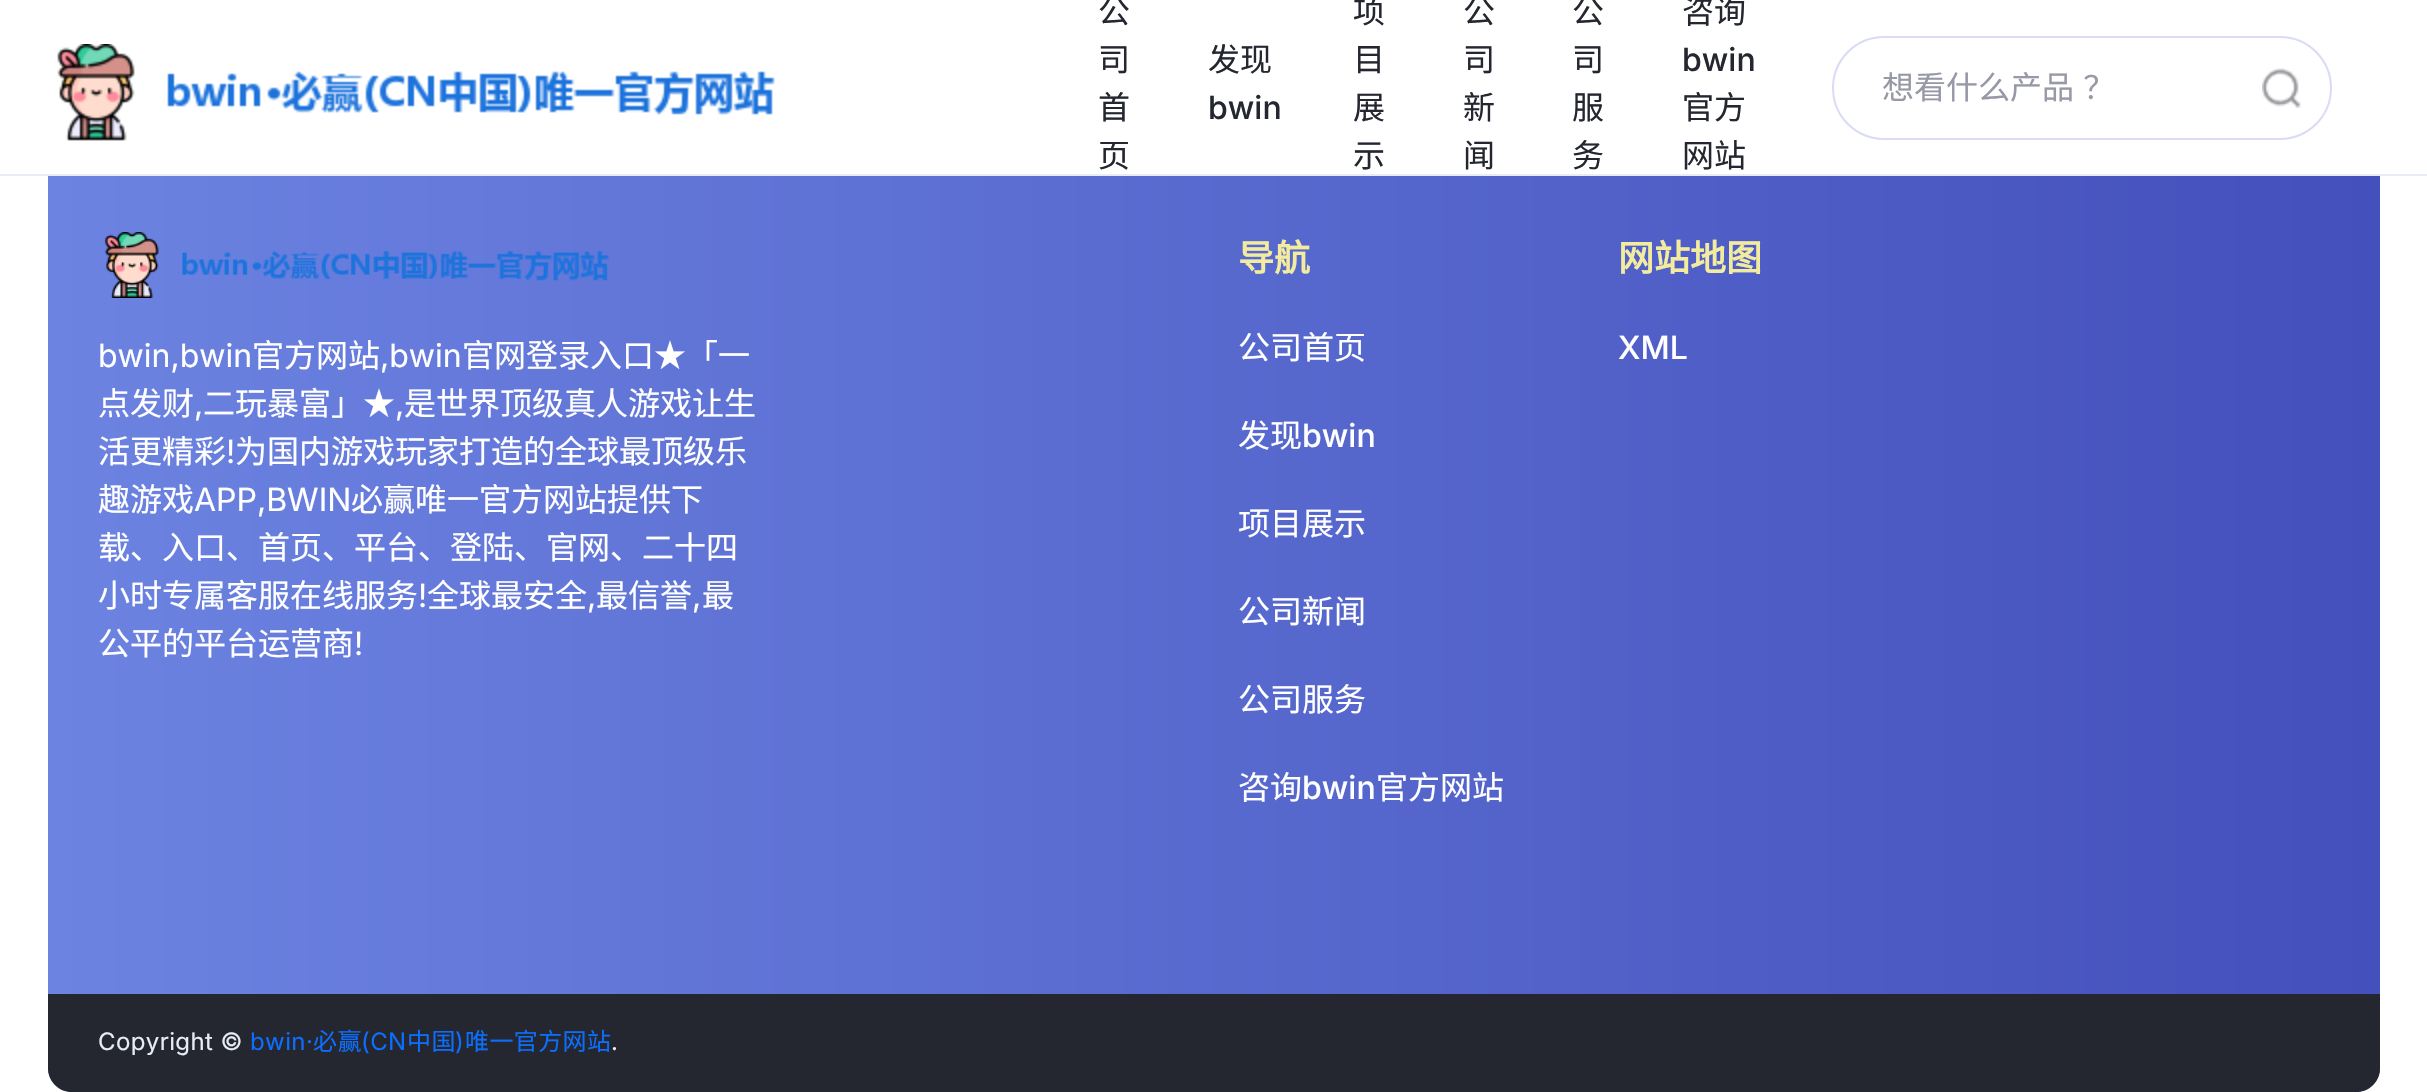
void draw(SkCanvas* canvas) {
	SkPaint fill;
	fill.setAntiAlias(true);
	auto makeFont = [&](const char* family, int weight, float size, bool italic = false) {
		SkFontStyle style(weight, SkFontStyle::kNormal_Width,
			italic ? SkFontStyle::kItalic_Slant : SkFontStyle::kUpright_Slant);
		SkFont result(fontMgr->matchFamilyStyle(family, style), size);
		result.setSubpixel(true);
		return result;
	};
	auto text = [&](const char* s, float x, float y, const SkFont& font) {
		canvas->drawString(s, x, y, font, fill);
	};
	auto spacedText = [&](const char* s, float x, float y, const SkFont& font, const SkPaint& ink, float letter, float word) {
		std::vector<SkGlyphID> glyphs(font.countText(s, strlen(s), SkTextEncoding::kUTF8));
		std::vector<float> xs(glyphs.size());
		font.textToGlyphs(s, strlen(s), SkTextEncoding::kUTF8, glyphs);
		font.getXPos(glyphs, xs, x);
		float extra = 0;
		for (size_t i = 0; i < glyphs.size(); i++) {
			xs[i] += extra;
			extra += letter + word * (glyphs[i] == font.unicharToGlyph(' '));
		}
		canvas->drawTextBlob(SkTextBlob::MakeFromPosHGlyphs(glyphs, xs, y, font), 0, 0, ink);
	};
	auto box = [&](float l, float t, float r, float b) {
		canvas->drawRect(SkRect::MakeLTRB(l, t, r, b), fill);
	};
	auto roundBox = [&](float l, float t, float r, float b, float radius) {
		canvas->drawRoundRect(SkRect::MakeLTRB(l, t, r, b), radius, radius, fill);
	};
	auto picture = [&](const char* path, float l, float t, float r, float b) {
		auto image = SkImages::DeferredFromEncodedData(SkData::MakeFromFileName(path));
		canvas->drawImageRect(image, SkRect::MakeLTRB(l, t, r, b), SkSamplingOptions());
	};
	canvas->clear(0xFFFFFFFF);
	{
		const SkColor colors[] = {0xFF6C83E1, 0xFF4450BC};
		const float stops[] = {0, 1};
		const SkPoint ends[] = {{48, 583}, {2380, 583}};
		fill.setShader(SkGradientShader::MakeLinear(ends, colors, stops, 2, SkTileMode::kClamp));
		fill.setAlpha(255);
	}
	roundBox(48, 74, 2380, 1092, 24);
	fill.setShader(nullptr);
	fill.setColor(0xFFFFFFFF);
	box(48, 74, 2380, 174);
	fill.setColor(0xFFE8ECF6);
	box(0, 174, 2427, 176);
	picture("image0.png", 57, 44, 775, 141);
	fill.setStyle(SkPaint::kStroke_Style);
	fill.setStrokeWidth(2);
	fill.setColor(0xFFD9DBF7);
	canvas->drawRoundRect(SkRect::MakeLTRB(1833, 37, 2331, 139), 51, 51, fill);
	picture("image1.png", 2262, 68, 2301, 108);
	picture("image2.png", 104, 232, 609, 298);
	fill.setStyle(SkPaint::kFill_Style);
	fill.setColor(0xFF242730);
	canvas->drawPath(SkPathBuilder().moveTo(48, 994).lineTo(2380, 994).lineTo(2380, 1068).cubicTo(2380, 1081.5f, 2369.5f, 1092, 2356, 1092).lineTo(72, 1092).cubicTo(58.5f, 1092, 48, 1081.5f, 48, 1068).close().detach(), fill);
	auto font1 = makeFont("Noto Sans CJK SC", 400, 32);
	text("公", 1098, 23, font1);
	text("司", 1098, 71, font1);
	text("首", 1098, 119, font1);
	text("页", 1098, 167, font1);
	text("发现", 1208, 71, font1);
	auto font2 = makeFont("Inter", 500, 32);
	text("bwin", 1208, 119, font2);
	text("项", 1353, 23, font1);
	text("目", 1353, 71, font1);
	text("展", 1353, 119, font1);
	text("示", 1353, 167, font1);
	text("公", 1463, 23, font1);
	text("司", 1463, 71, font1);
	text("新", 1463, 119, font1);
	text("闻", 1463, 167, font1);
	text("公", 1572, 23, font1);
	text("司", 1572, 71, font1);
	text("服", 1572, 119, font1);
	text("务", 1572, 167, font1);
	text("咨询", 1682, 23, font1);
	text("bwin", 1682, 71, font2);
	text("官方", 1682, 119, font1);
	text("网站", 1682, 167, font1);
	fill.setColor(0xFF9799A6);
	spacedText("想看什么产品 ？", 1882, 99, font1, fill, 0, 2);
	auto font3 = makeFont("Inter", 400, 32);
	fill.setColor(0xFFFFFFFF);
	text("bwin,bwin", 98, 367, font3);
	text("官方网站", 252, 367, font1);
	text(",bwin", 380, 367, font3);
	text("官网登录入口★「一", 462, 367, font1);
	text("点发财", 98, 415, font1);
	text(",", 194, 415, font3);
	text("二玩暴富」★", 203, 415, font1);
	text(",", 395, 415, font3);
	text("是世界顶级真人游戏让生", 404, 415, font1);
	text("活更精彩", 98, 463, font1);
	text("!", 226, 463, font3);
	text("为国内游戏玩家打造的全球最顶级乐", 235, 463, font1);
	text("趣游戏", 98, 511, font1);
	text("APP,BWIN", 194, 511, font3);
	text("必赢唯一官方网站提供下", 351, 511, font1);
	text("载、入口、首页、平台、登陆、官网、二十四", 98, 559, font1);
	text("小时专属客服在线服务", 98, 607, font1);
	text("!", 418, 607, font3);
	text("全球最安全", 427, 607, font1);
	text(",", 587, 607, font3);
	text("最信誉", 596, 607, font1);
	text(",", 692, 607, font3);
	text("最", 702, 607, font1);
	text("公平的平台运营商", 98, 655, font1);
	text("!", 354, 655, font3);
	auto font4 = makeFont("Noto Sans CJK SC", 700, 36);
	fill.setColor(0xFFF3EC9E);
	text("导航", 1238, 271, font4);
	fill.setColor(0xFFFFFFFF);
	text("公司首页", 1238, 359, font1);
	text("发现", 1238, 447, font1);
	text("bwin", 1302, 447, font2);
	text("项目展示", 1238, 535, font1);
	text("公司新闻", 1238, 623, font1);
	text("公司服务", 1238, 711, font1);
	text("咨询", 1238, 799, font1);
	text("bwin", 1302, 799, font2);
	text("官方网站", 1376, 799, font1);
	fill.setColor(0xFFF3EC9E);
	text("网站地图", 1618, 271, font4);
	fill.setColor(0xFFFFFFFF);
	text("XML", 1618, 359, font2);
	auto font5 = makeFont("Inter", 400, 24);
	fill.setColor(0xFFE8ECF6);
	spacedText("Copyright ©", 98, 1050, font5, fill, 0.4f, 0);
	fill.setColor(0xFF0D6EFD);
	spacedText("bwin·", 250, 1050, font5, fill, 0.4f, 0);
	auto font6 = makeFont("Noto Sans CJK SC", 400, 24);
	spacedText("必赢", 313, 1050, font6, fill, 0.4f, 0);
	spacedText("(CN", 361, 1050, font5, fill, 0.4f, 0);
	spacedText("中国", 407, 1050, font6, fill, 0.4f, 0);
	spacedText(")", 455, 1050, font5, fill, 0.4f, 0);
	spacedText("唯一官方网站", 465, 1050, font6, fill, 0.4f, 0);
	fill.setColor(0xFFE8ECF6);
	spacedText(".", 611, 1050, font5, fill, 0.4f, 0);
}
